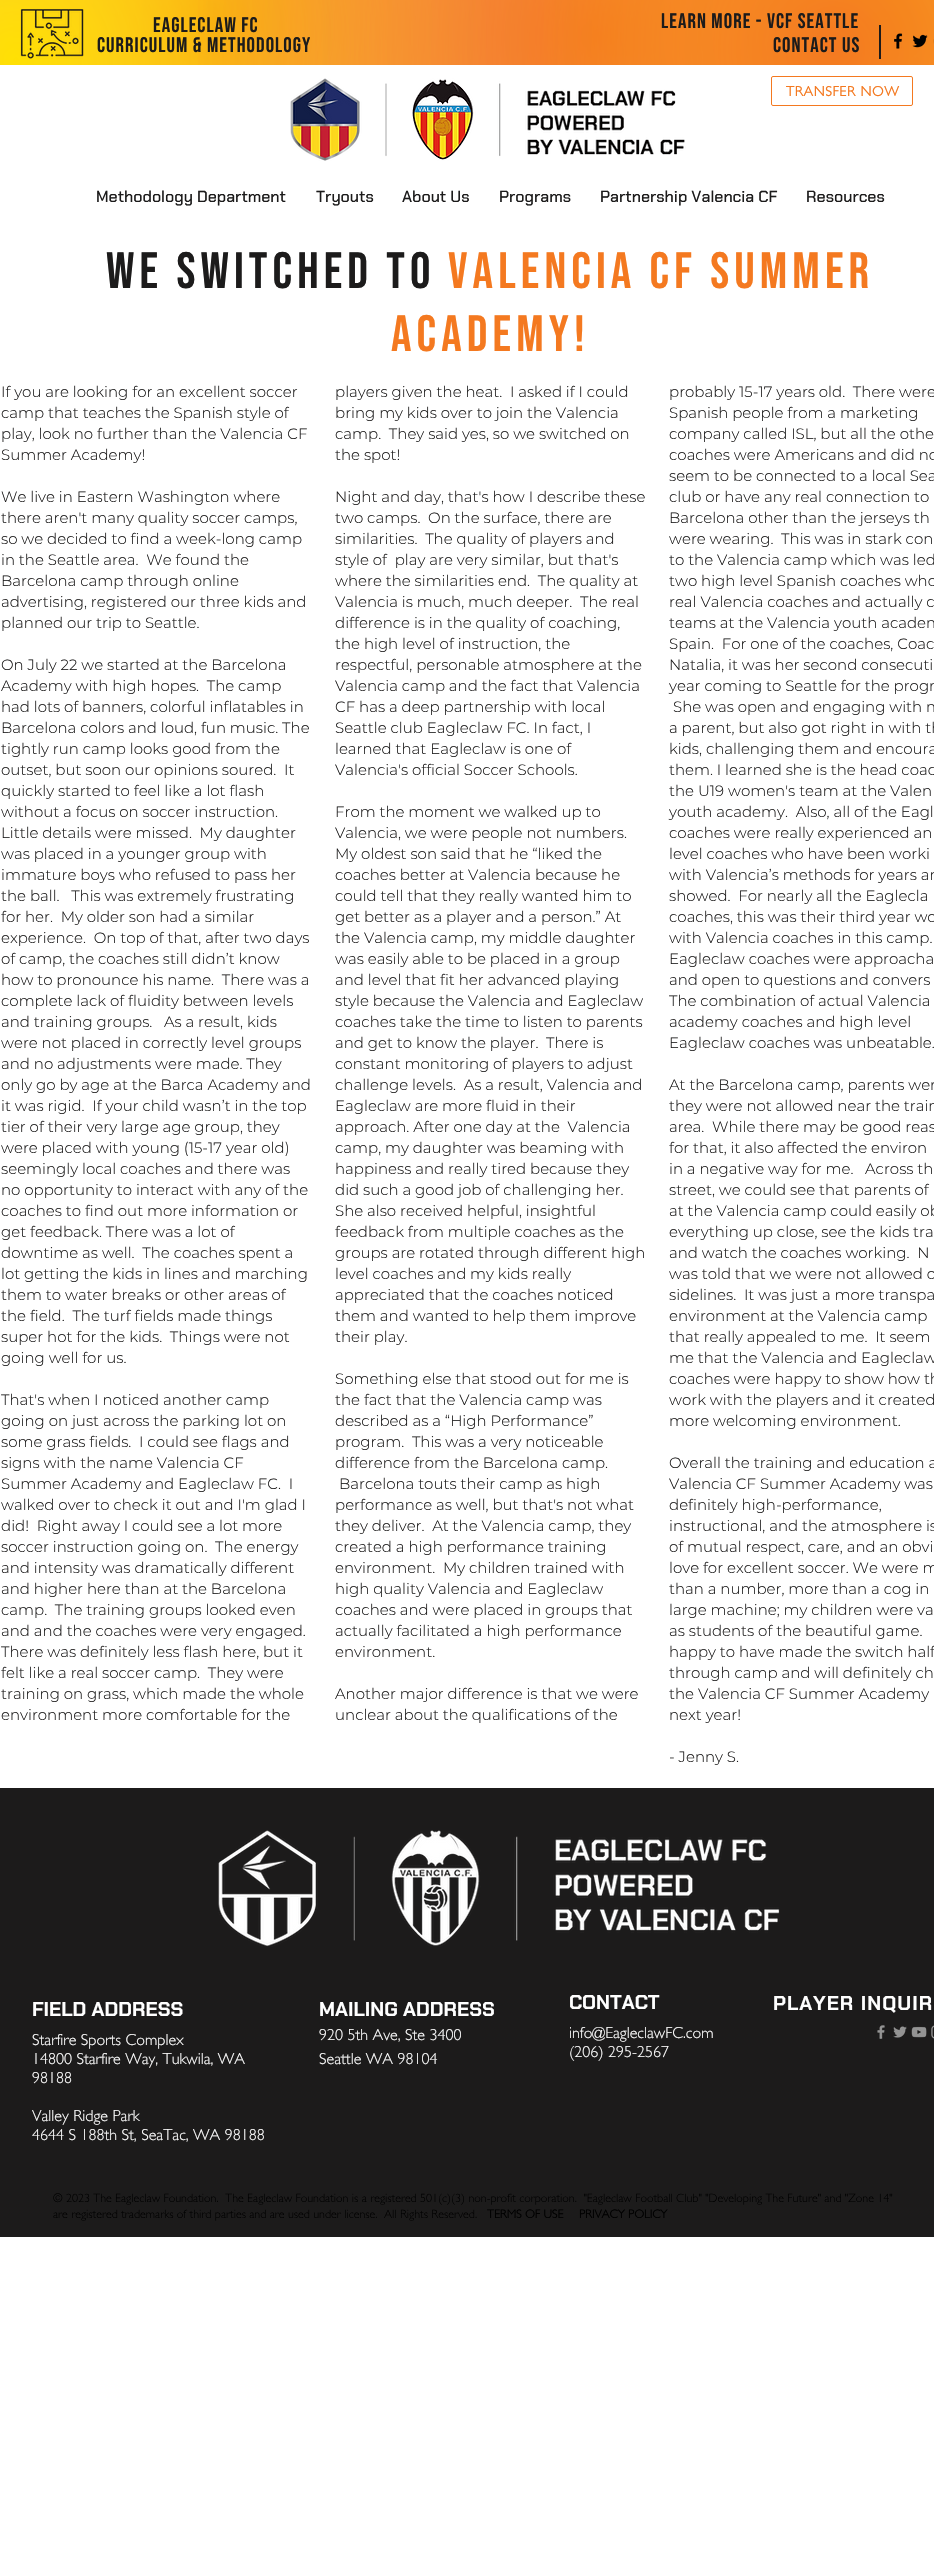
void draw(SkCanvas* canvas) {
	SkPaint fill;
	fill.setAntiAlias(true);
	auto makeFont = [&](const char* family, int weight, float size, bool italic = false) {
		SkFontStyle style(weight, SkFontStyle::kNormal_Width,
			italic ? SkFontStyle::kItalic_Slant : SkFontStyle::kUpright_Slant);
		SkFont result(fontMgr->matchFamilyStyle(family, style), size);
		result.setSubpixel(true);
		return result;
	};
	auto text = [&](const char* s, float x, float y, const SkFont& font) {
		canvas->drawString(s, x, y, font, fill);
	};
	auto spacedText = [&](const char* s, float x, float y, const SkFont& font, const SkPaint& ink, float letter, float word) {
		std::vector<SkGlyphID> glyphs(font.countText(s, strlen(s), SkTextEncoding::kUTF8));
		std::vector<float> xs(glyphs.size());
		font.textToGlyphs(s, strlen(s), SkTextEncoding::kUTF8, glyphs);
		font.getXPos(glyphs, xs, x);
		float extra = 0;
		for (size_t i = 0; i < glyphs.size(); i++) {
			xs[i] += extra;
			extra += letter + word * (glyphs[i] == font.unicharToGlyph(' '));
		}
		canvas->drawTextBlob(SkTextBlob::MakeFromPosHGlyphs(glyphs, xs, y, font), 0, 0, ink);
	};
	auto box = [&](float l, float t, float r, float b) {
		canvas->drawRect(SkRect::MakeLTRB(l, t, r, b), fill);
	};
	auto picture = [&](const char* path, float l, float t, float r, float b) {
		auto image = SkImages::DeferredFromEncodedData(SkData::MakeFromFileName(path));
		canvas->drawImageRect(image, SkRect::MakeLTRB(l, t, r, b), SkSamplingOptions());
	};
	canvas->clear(0xFFFFFFFF);
	{
		const SkColor colors[] = {0xFFF47920, 0xFFFFFFFF};
		const float stops[] = {0, 0.7f};
		fill.setShader(SkGradientShader::MakeRadial({600, 36}, 601, colors, stops, 2, SkTileMode::kClamp));
		fill.setAlpha(255);
	}
	box(184, 0, 934, 65);
	{
		const SkColor colors[] = {0xFFF47920, 0x00F47920};
		const float stops[] = {0, 0.7f};
		fill.setShader(SkGradientShader::MakeRadial({212, 25}, 769, colors, stops, 2, SkTileMode::kClamp));
		fill.setAlpha(255);
	}
	box(0, 0, 733, 65);
	{
		const SkColor colors[] = {0xFCFFE002, 0x00FFE002};
		const float stops[] = {0, 0.5f};
		fill.setShader(SkGradientShader::MakeRadial({16, 60}, 966, colors, stops, 2, SkTileMode::kClamp));
		fill.setAlpha(255);
	}
	box(0, 0, 486, 65);
	{
		const SkColor colors[] = {0xFFFFE002, 0x00FFE002};
		const float stops[] = {0, 0.4f};
		fill.setShader(SkGradientShader::MakeRadial({890, 24}, 891, colors, stops, 2, SkTileMode::kClamp));
		fill.setAlpha(255);
	}
	box(544, 0, 934, 65);
	{
		const SkColor colors[] = {0xFFF47920, 0x00F47920};
		const float stops[] = {0, 0.79f};
		fill.setShader(SkGradientShader::MakeRadial({833, 49}, 834, colors, stops, 2, SkTileMode::kClamp));
		fill.setAlpha(255);
	}
	box(198, 0, 934, 65);
	picture("image0.png", 20, 9, 84, 59);
	fill.setShader(nullptr);
	fill.setColor(0xFF1C1B1B);
	box(879, 25, 881, 59);
	picture("image1.png", 894, 33, 903, 49);
	picture("image2.png", 912, 34, 928, 48);
	picture("image3.png", 933, 39, 934, 44);
	picture("image4.png", 290, 78, 686, 161);
	fill.setStyle(SkPaint::kStroke_Style);
	fill.setStrokeWidth(1);
	fill.setColor(0xFFF47920);
	canvas->drawRoundRect(SkRect::MakeLTRB(771.5f, 76.5f, 912.5f, 105.5f), 1.5f, 1.5f, fill);
	fill.setStyle(SkPaint::kFill_Style);
	fill.setColor(0xFF1C1B1B);
	box(0, 1788, 934, 2237);
	picture("image5.png", 218, 1830, 780, 1947);
	picture("image6.png", 877, 2025, 885, 2039);
	picture("image7.png", 893, 2026, 907, 2038);
	picture("image8.png", 911, 2026, 927, 2038);
	picture("image9.png", 931, 2025, 934, 2039);
	auto font1 = makeFont("Bebas Neue", 400, 21);
	spacedText("EAGLECLAW FC", 153, 32, font1, fill, 1.05f, 0);
	spacedText("CURRICULUM & METHODOLOGY", 97, 52, font1, fill, 1.05f, 0);
	spacedText("LEARN MORE - VCF SEATTLE", 661, 28, font1, fill, 1.05f, 0);
	spacedText("CONTACT US", 773, 52, font1, fill, 1.05f, 0);
	auto font2 = makeFont("Gill Sans", 700, 14);
	fill.setColor(0xFFF47920);
	spacedText("TRANSFER NOW", 786, 96, font2, fill, 0.75f, 0);
	auto font3 = makeFont("Chakra Petch", 500, 16);
	fill.setColor(0xFF1C1B1B);
	text("Methodology Department", 96, 202, font3);
	text("Tryouts", 316, 202, font3);
	text("About Us", 402, 202, font3);
	text("Programs", 499, 202, font3);
	text("Partnership Valencia CF", 600, 202, font3);
	text("Resources", 806, 202, font3);
	auto font4 = makeFont("Bebas Neue", 400, 51);
	spacedText("We Switched to", 106, 288, font4, fill, 5.1f, 0);
	fill.setColor(0xFFF47920);
	spacedText("Valencia CF Summer", 448, 288, font4, fill, 5.1f, 0);
	spacedText("Academy!", 391, 351, font4, fill, 5.1f, 0);
	auto font5 = makeFont("Montserrat", 300, 15);
	fill.setColor(0xFF1C1B1B);
	text("If you are looking for an excellent soccer", 1, 397, font5);
	text("camp that teaches the Spanish style of", 1, 418, font5);
	text("play, look no further than the Valencia CF", 1, 439, font5);
	text("Summer Academy!", 1, 460, font5);
	text("We live in Eastern Washington where", 1, 502, font5);
	text("there aren't many quality soccer camps,", 1, 523, font5);
	text("so we decided to find a week-long camp", 1, 544, font5);
	text("in the Seattle area.  We found the", 1, 565, font5);
	text("Barcelona camp through online", 1, 586, font5);
	text("advertising, registered our three kids and", 1, 607, font5);
	text("planned our trip to Seattle.", 1, 628, font5);
	text("On July 22 we started at the Barcelona", 1, 670, font5);
	text("Academy with high hopes.  The camp", 1, 691, font5);
	text("had lots of banners, colorful inflatables in", 1, 712, font5);
	text("Barcelona colors and loud, fun music. The", 1, 733, font5);
	text("tightly run camp looks good from the", 1, 754, font5);
	text("outset, but soon our opinions soured.  It", 1, 775, font5);
	text("quickly started to feel like a lot flash", 1, 796, font5);
	text("without a focus on soccer instruction.", 1, 817, font5);
	text("Little details were missed.  My daughter", 1, 838, font5);
	text("was placed in a younger group with", 1, 859, font5);
	text("immature boys who refused to pass her", 1, 880, font5);
	text("the ball.   This was extremely frustrating", 1, 901, font5);
	text("for her.  My older son had a similar", 1, 922, font5);
	text("experience.  On top of that, after two days", 1, 943, font5);
	text("of camp, the coaches still didn’t know", 1, 964, font5);
	text("how to pronounce his name.  There was a", 1, 985, font5);
	text("complete lack of fluidity between levels", 1, 1006, font5);
	text("and training groups.   As a result, kids", 1, 1027, font5);
	text("were not placed in correctly level groups", 1, 1048, font5);
	text("and no adjustments were made. They", 1, 1069, font5);
	text("only go by age at the Barca Academy and", 1, 1090, font5);
	text("it was rigid.  If your child wasn’t in the top", 1, 1111, font5);
	text("tier of their very large age group, they", 1, 1132, font5);
	text("were placed with young (15-17 year old)", 1, 1153, font5);
	text("seemingly local coaches and there was", 1, 1174, font5);
	text("no opportunity to interact with any of the", 1, 1195, font5);
	text("coaches to find out more information or", 1, 1216, font5);
	text("get feedback. There was a lot of", 1, 1237, font5);
	text("downtime as well.  The coaches spent a", 1, 1258, font5);
	text("lot getting the kids in lines and marching", 1, 1279, font5);
	text("them to water breaks or other areas of", 1, 1300, font5);
	text("the field.  The turf fields made things", 1, 1321, font5);
	text("super hot for the kids.  Things were not", 1, 1342, font5);
	text("going well for us.", 1, 1363, font5);
	text("That's when I noticed another camp", 1, 1405, font5);
	text("going on just across the parking lot on", 1, 1426, font5);
	text("some grass fields.  I could see flags and", 1, 1447, font5);
	text("signs with the name Valencia CF", 1, 1468, font5);
	text("Summer Academy and Eagleclaw FC.  I", 1, 1489, font5);
	text("walked over to check it out and I'm glad I", 1, 1510, font5);
	text("did!  Right away I could see a lot more", 1, 1531, font5);
	text("soccer instruction going on.  The energy", 1, 1552, font5);
	text("and intensity was dramatically different", 1, 1573, font5);
	text("and higher here than at the Barcelona", 1, 1594, font5);
	text("camp.  The training groups looked even", 1, 1615, font5);
	text("and and the coaches were very engaged.", 1, 1636, font5);
	text("There was definitely less flash here, but it", 1, 1657, font5);
	text("felt like a real soccer camp.  They were", 1, 1678, font5);
	text("training on grass, which made the whole", 1, 1699, font5);
	text("environment more comfortable for the", 1, 1720, font5);
	text("players given the heat.  I asked if I could", 335, 397, font5);
	text("bring my kids over to join the Valencia", 335, 418, font5);
	text("camp.  They said yes, so we switched on", 335, 439, font5);
	text("the spot!", 335, 460, font5);
	text("Night and day, that's how I describe these", 335, 502, font5);
	text("two camps.  On the surface, there are", 335, 523, font5);
	text("similarities.  The quality of players and", 335, 544, font5);
	text("style of  play are very similar, but that's", 335, 565, font5);
	text("where the similarities end.  The quality at", 335, 586, font5);
	text("Valencia is much, much deeper.  The real", 335, 607, font5);
	text("difference is in the quality of coaching,", 335, 628, font5);
	text("the high level of instruction, the", 335, 649, font5);
	text("respectful, personable atmosphere at the", 335, 670, font5);
	text("Valencia camp and the fact that Valencia", 335, 691, font5);
	text("CF has a deep partnership with local", 335, 712, font5);
	text("Seattle club Eagleclaw FC. In fact, I", 335, 733, font5);
	text("learned that Eagleclaw is one of", 335, 754, font5);
	text("Valencia's official Soccer Schools.", 335, 775, font5);
	text("From the moment we walked up to", 335, 817, font5);
	text("Valencia, we were people not numbers.", 335, 838, font5);
	text("My oldest son said that he “liked the", 335, 859, font5);
	text("coaches better at Valencia because he", 335, 880, font5);
	text("could tell that they really wanted him to", 335, 901, font5);
	text("get better as a player and a person.” At", 335, 922, font5);
	text("the Valencia camp, my middle daughter", 335, 943, font5);
	text("was easily able to be placed in a group", 335, 964, font5);
	text("and level that fit her advanced playing", 335, 985, font5);
	text("style because the Valencia and Eagleclaw", 335, 1006, font5);
	text("coaches take the time to listen to parents", 335, 1027, font5);
	text("and get to know the player.  There is", 335, 1048, font5);
	text("constant monitoring of players to adjust", 335, 1069, font5);
	text("challenge levels.  As a result, Valencia and", 335, 1090, font5);
	text("Eagleclaw are more fluid in their", 335, 1111, font5);
	text("approach. After one day at the  Valencia", 335, 1132, font5);
	text("camp, my daughter was beaming with", 335, 1153, font5);
	text("happiness and really tired because they", 335, 1174, font5);
	text("did such a good job of challenging her.", 335, 1195, font5);
	text("She also received helpful, insightful", 335, 1216, font5);
	text("feedback from multiple coaches as the", 335, 1237, font5);
	text("groups are rotated through different high", 335, 1258, font5);
	text("level coaches and my kids really", 335, 1279, font5);
	text("appreciated that the coaches noticed", 335, 1300, font5);
	text("them and wanted to help them improve", 335, 1321, font5);
	text("their play.", 335, 1342, font5);
	text("Something else that stood out for me is", 335, 1384, font5);
	text("the fact that the Valencia camp was", 335, 1405, font5);
	text("described as a “High Performance”", 335, 1426, font5);
	text("program.  This was a very noticeable", 335, 1447, font5);
	text("difference from the Barcelona camp.", 335, 1468, font5);
	text("Barcelona touts their camp as high", 339, 1489, font5);
	text("performance as well, but that's not what", 335, 1510, font5);
	text("they deliver.  At the Valencia camp, they", 335, 1531, font5);
	text("created a high performance training", 335, 1552, font5);
	text("environment.  My children trained with", 335, 1573, font5);
	text("high quality Valencia and Eagleclaw", 335, 1594, font5);
	text("coaches and were placed in groups that", 335, 1615, font5);
	text("actually facilitated a high performance", 335, 1636, font5);
	text("environment.", 335, 1657, font5);
	text("Another major difference is that we were", 335, 1699, font5);
	text("unclear about the qualifications of the", 335, 1720, font5);
	text("probably 15-17 years old.  There were", 669, 397, font5);
	text("Spanish people from a marketing", 669, 418, font5);
	text("company called ISL, but all the othe", 669, 439, font5);
	text("coaches were Americans and did no", 669, 460, font5);
	text("seem to be connected to a local Sea", 669, 481, font5);
	text("club or have any real connection to", 669, 502, font5);
	text("Barcelona other than the jerseys th", 669, 523, font5);
	text("were wearing.  This was in stark con", 669, 544, font5);
	text("to the Valencia camp which was led", 669, 565, font5);
	text("two high level Spanish coaches who", 669, 586, font5);
	text("real Valencia coaches and actually c", 669, 607, font5);
	text("teams at the Valencia youth academ", 669, 628, font5);
	text("Spain.  For one of the coaches, Coac", 669, 649, font5);
	text("Natalia, it was her second consecuti", 669, 670, font5);
	text("year coming to Seattle for the progr", 669, 691, font5);
	text("She was open and engaging with m", 673, 712, font5);
	text("a parent, but also got right in with th", 669, 733, font5);
	text("kids, challenging them and encoura", 669, 754, font5);
	text("them. I learned she is the head coac", 669, 775, font5);
	text("the U19 women's team at the Valen", 669, 796, font5);
	text("youth academy.  Also, all of the Eagl", 669, 817, font5);
	text("coaches were really experienced an", 669, 838, font5);
	text("level coaches who have been worki", 669, 859, font5);
	text("with Valencia’s methods for years an", 669, 880, font5);
	text("showed.  For nearly all the Eaglecla", 669, 901, font5);
	text("coaches, this was their third year wo", 669, 922, font5);
	text("with Valencia coaches in this camp.", 669, 943, font5);
	text("Eagleclaw coaches were approacha", 669, 964, font5);
	text("and open to questions and convers", 669, 985, font5);
	text("The combination of actual Valencia", 669, 1006, font5);
	text("academy coaches and high level", 669, 1027, font5);
	text("Eagleclaw coaches was unbeatable.", 669, 1048, font5);
	text("At the Barcelona camp, parents wer", 669, 1090, font5);
	text("they were not allowed near the train", 669, 1111, font5);
	text("area.  While there may be good reas", 669, 1132, font5);
	text("for that, it also affected the environ", 669, 1153, font5);
	text("in a negative way for me.   Across th", 669, 1174, font5);
	text("street, we could see that parents of", 669, 1195, font5);
	text("at the Valencia camp could easily ob", 669, 1216, font5);
	text("everything up close, see the kids tra", 669, 1237, font5);
	text("and watch the coaches working.  N", 669, 1258, font5);
	text("was told that we were not allowed o", 669, 1279, font5);
	text("sidelines.  It was just a more transpa", 669, 1300, font5);
	text("environment at the Valencia camp", 669, 1321, font5);
	text("that really appealed to me.  It seem", 669, 1342, font5);
	text("me that the Valencia and Eagleclaw", 669, 1363, font5);
	text("coaches were happy to show how th", 669, 1384, font5);
	text("work with the players and it created", 669, 1405, font5);
	text("more welcoming environment.", 669, 1426, font5);
	text("Overall the training and education a", 669, 1468, font5);
	text("Valencia CF Summer Academy was", 669, 1489, font5);
	text("definitely high-performance,", 669, 1510, font5);
	text("instructional, and the atmosphere is", 669, 1531, font5);
	text("of mutual respect, care, and an obvi", 669, 1552, font5);
	text("love for excellent soccer. We were m", 669, 1573, font5);
	text("than a number, more than a cog in", 669, 1594, font5);
	text("large machine; my children were va", 669, 1615, font5);
	text("as students of the beautiful game.", 669, 1636, font5);
	text("happy to have made the switch half", 669, 1657, font5);
	text("through camp and will definitely ch", 669, 1678, font5);
	text("the Valencia CF Summer Academy", 669, 1699, font5);
	text("next year!", 669, 1720, font5);
	text("- Jenny S.", 669, 1762, font5);
	auto font6 = makeFont("Chakra Petch", 700, 20);
	fill.setColor(0xFFFFFFFF);
	text("FIELD ADDRESS", 32, 2016, font6);
	text("MAILING ADDRESS", 319, 2016, font6);
	text("CONTACT", 569, 2009, font6);
	spacedText("PLAYER INQUIR", 773, 2010, font6, fill, 1, 0);
	auto font7 = makeFont("Gill Sans", 300, 16);
	text("Starfire Sports Complex", 32, 2045, font7);
	text("14800 Starfire Way, Tukwila, WA", 32, 2064, font7);
	text("98188", 32, 2083, font7);
	text("Valley Ridge Park", 32, 2121, font7);
	text("4644 S 188th St, SeaTac, WA 98188", 32, 2140, font7);
	text("920 5th Ave, Ste 3400", 319, 2040, font7);
	text("Seattle WA 98104", 319, 2064, font7);
	text("info@EagleclawFC.com", 569, 2038, font7);
	text("(206) 295-2567", 569, 2057, font7);
	auto font8 = makeFont("Gill Sans", 300, 12);
	fill.setColor(0xFF000000);
	text("© 2023 The Eagleclaw Foundation.  The Eagleclaw Foundation is a registered 501(c)(3) non-profit corporation.  \"Eagleclaw Football Club\" \"Developing The Future\" and \"Zone 14\"", 53, 2202, font8);
	text("are registered trademarks of third parties and are used under license.  All Rights Reserved.", 53, 2218, font8);
	auto font9 = makeFont("Gill Sans", 700, 12);
	text("TERMS OF USE", 487, 2218, font9);
	text("PRIVACY POLICY", 579, 2218, font9);
}
